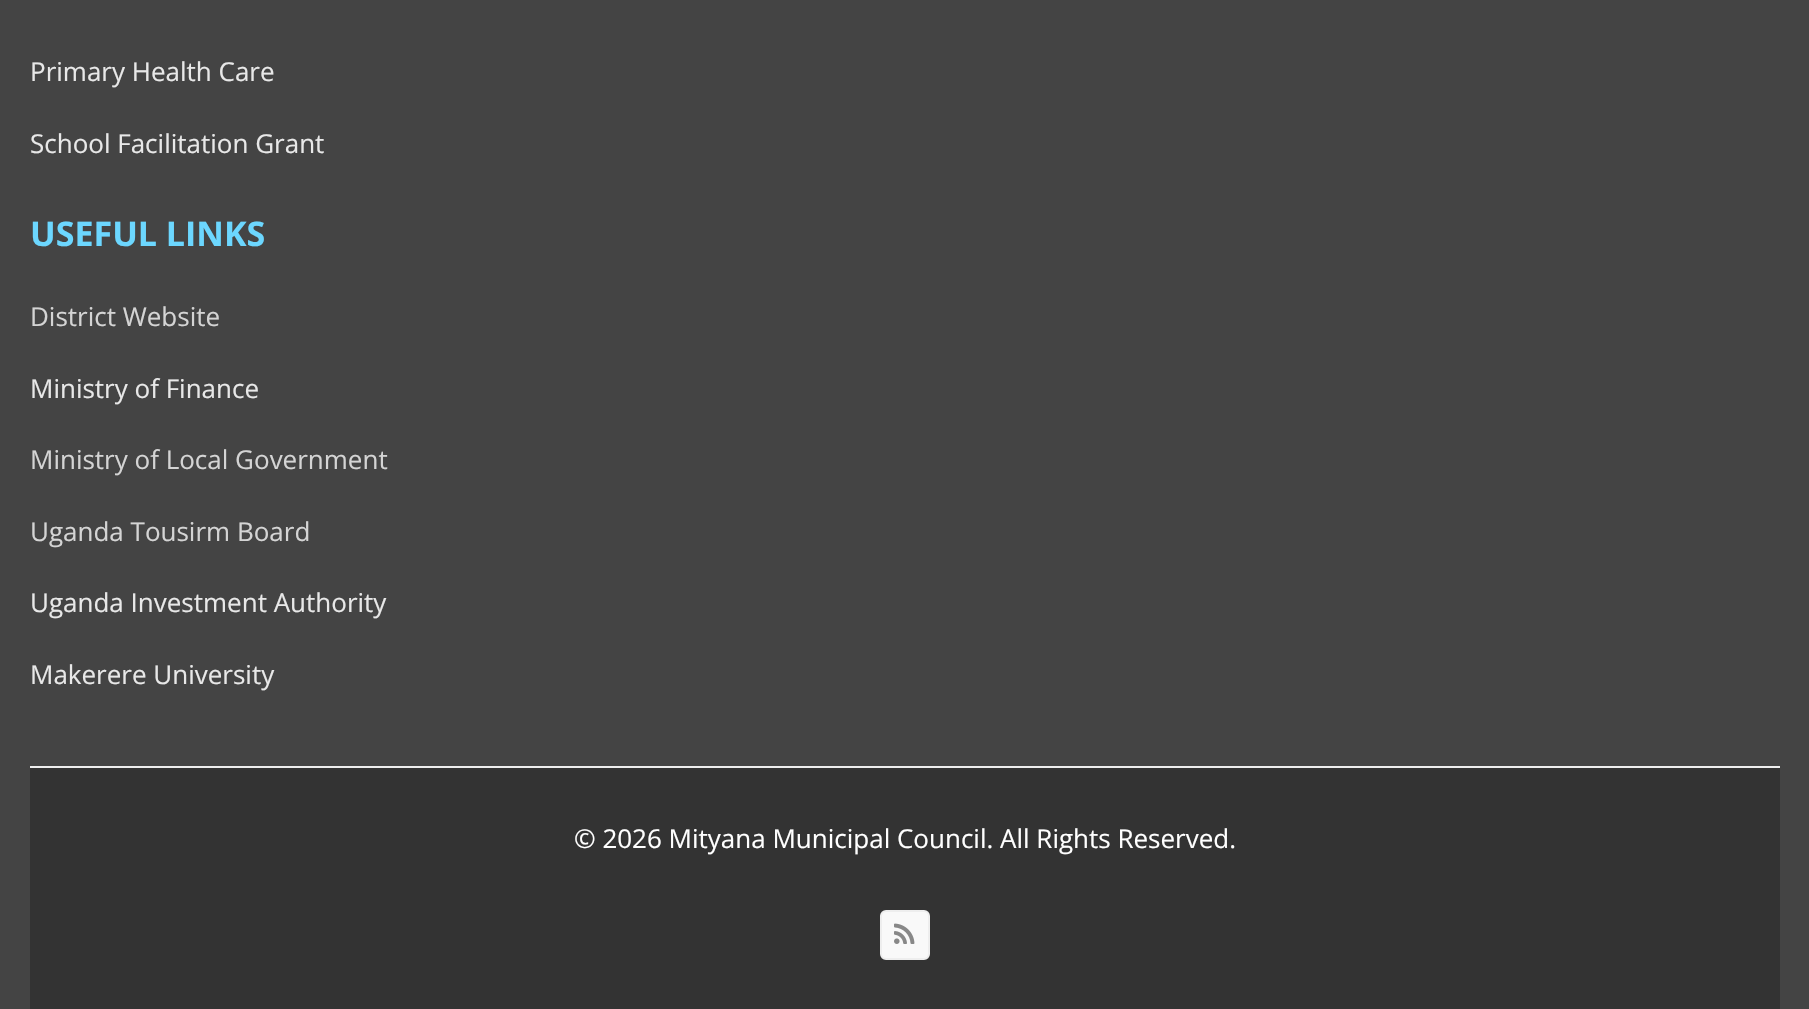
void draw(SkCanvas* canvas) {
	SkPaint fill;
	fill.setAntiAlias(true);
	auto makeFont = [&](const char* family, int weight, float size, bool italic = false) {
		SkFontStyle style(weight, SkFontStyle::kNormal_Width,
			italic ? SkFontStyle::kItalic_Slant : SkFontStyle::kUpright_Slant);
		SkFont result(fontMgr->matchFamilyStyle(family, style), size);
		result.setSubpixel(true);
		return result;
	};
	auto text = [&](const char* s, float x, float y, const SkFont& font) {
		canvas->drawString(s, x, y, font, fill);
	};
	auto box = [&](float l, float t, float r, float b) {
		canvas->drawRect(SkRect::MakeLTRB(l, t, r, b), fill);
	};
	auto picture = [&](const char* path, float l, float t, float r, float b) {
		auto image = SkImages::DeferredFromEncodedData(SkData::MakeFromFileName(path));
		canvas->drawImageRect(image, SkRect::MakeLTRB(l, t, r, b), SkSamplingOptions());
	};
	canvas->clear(0xFF444444);
	fill.setColor(0xFF333333);
	box(30, 768, 1780, 1009);
	fill.setColor(0xFFEEEEEE);
	box(30, 766, 1780, 768);
	fill.setColor(0xFFF9F9F9);
	canvas->drawRoundRect(SkRect::MakeLTRB(881, 911, 929, 959), 5, 5, fill);
	fill.setStyle(SkPaint::kStroke_Style);
	fill.setStrokeWidth(2);
	fill.setColor(0xFFEEEEEE);
	canvas->drawRoundRect(SkRect::MakeLTRB(881, 911, 929, 959), 5, 5, fill);
	picture("image0.png", 894, 923, 915, 944);
	auto font1 = makeFont("Open Sans", 400, 26);
	fill.setStyle(SkPaint::kFill_Style);
	fill.setColor(0xFFE8E8E8);
	text("Primary Health Care", 30, 81, font1);
	text("School Facilitation Grant", 30, 153, font1);
	auto font2 = makeFont("Open Sans", 700, 34);
	fill.setColor(0xFF6CD7FF);
	text("USEFUL LINKS", 30, 246, font2);
	fill.setColor(0xFFD4D4D4);
	text("District Website", 30, 326, font1);
	fill.setColor(0xFFE8E8E8);
	text("Ministry of Finance", 30, 398, font1);
	fill.setColor(0xFFD4D4D4);
	text("Ministry of Local Government", 30, 469, font1);
	text("Uganda Tousirm Board", 30, 541, font1);
	fill.setColor(0xFFE8E8E8);
	text("Uganda Investment Authority", 30, 612, font1);
	text("Makerere University", 30, 684, font1);
	fill.setColor(0xFFFFFFFF);
	text("© 2026 Mityana Municipal Council. All Rights Reserved.", 574, 848, font1);
}
